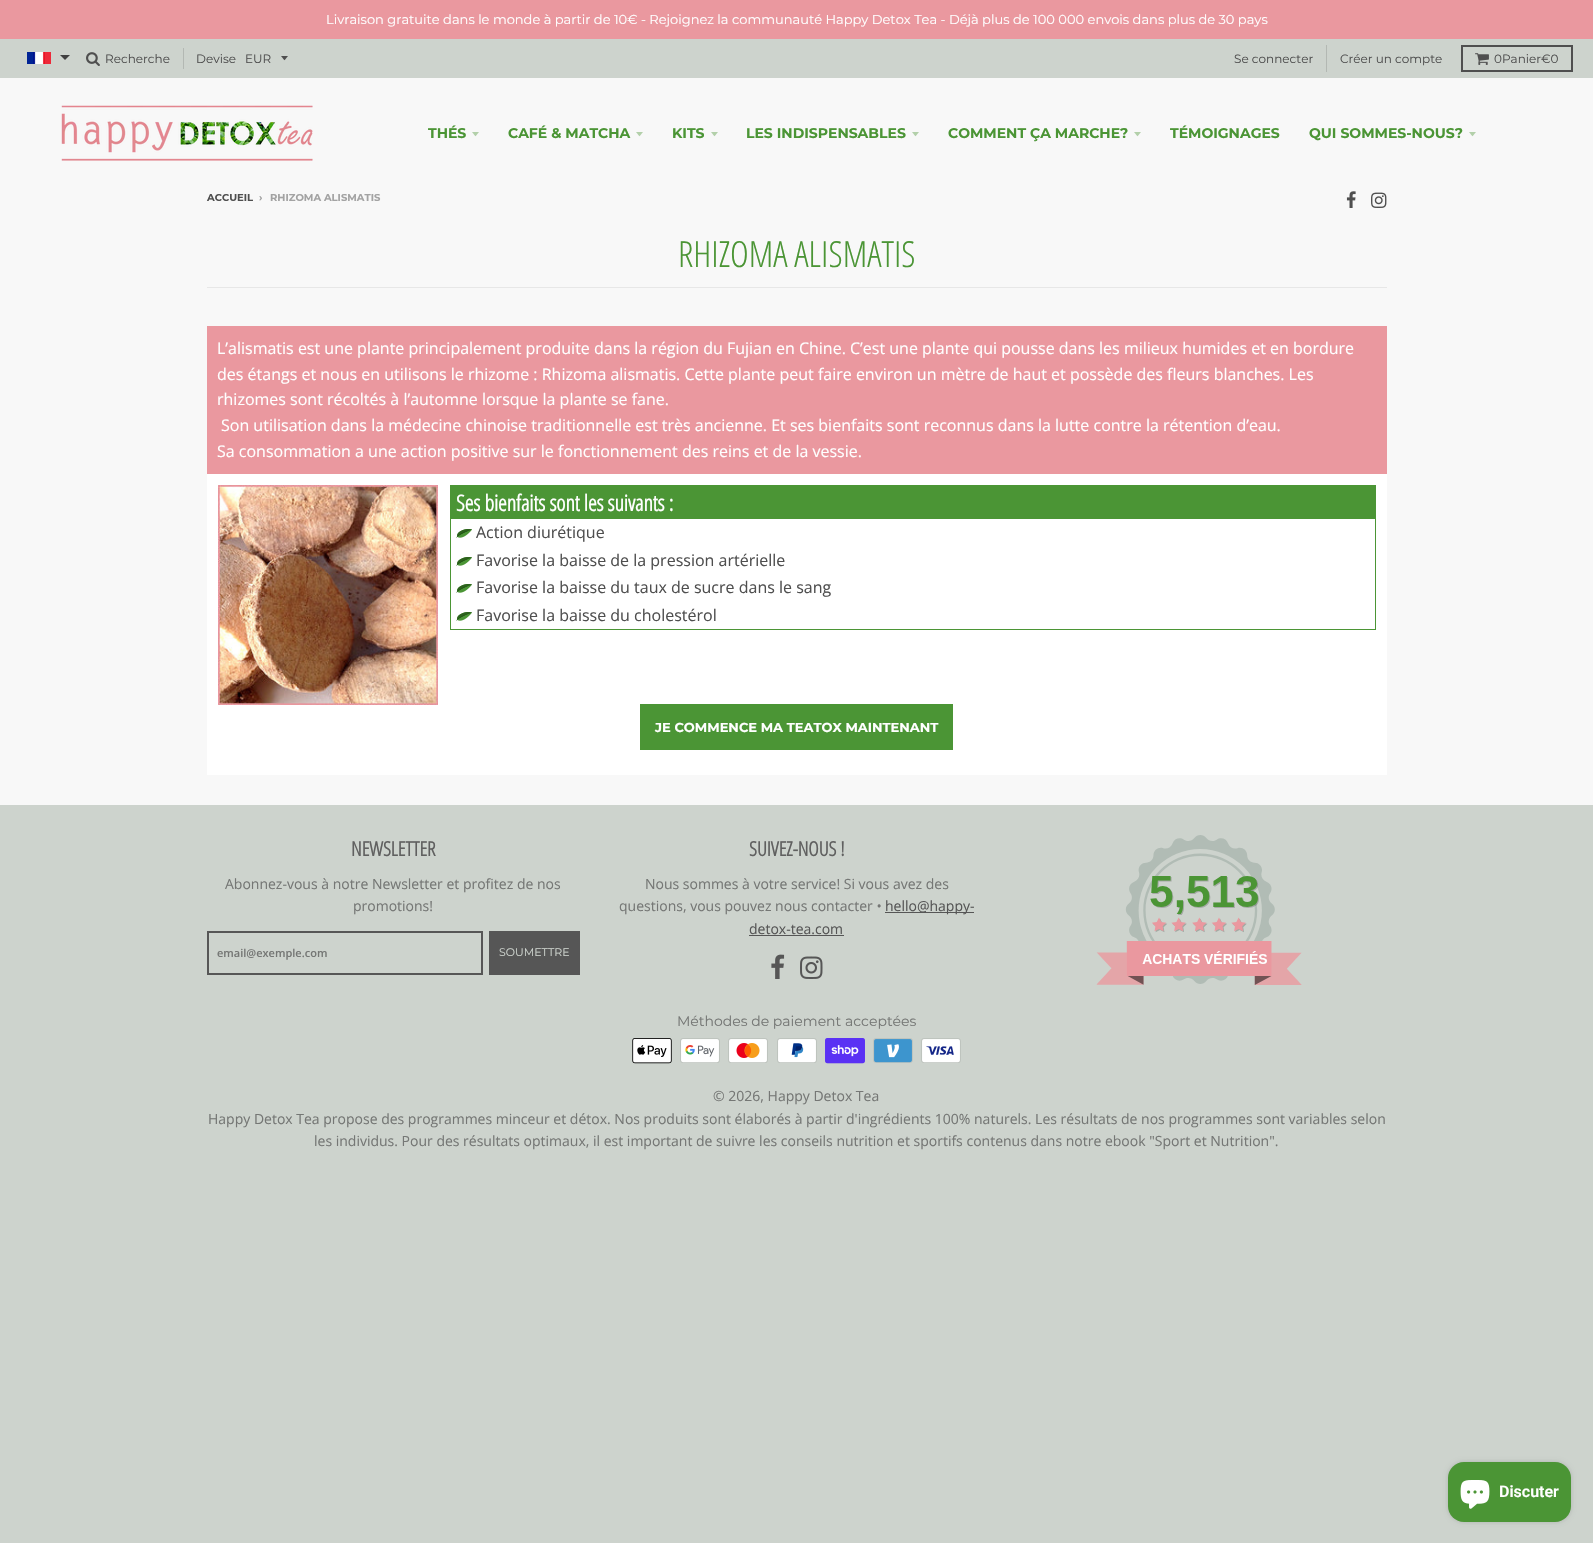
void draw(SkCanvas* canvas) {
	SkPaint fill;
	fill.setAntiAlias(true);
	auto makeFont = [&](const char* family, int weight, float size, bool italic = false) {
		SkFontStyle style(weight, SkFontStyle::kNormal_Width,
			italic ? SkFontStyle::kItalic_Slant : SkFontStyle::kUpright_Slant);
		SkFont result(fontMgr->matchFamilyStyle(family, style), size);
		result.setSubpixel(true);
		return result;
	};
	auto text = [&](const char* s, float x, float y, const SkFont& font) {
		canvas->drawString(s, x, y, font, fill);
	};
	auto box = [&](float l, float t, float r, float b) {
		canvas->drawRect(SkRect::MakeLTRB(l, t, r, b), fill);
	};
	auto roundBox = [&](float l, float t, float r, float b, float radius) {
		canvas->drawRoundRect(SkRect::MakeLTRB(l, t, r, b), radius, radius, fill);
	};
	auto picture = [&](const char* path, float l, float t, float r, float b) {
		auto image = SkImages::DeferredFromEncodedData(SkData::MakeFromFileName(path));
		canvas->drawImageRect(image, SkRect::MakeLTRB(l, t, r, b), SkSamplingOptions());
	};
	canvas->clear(0xFFCDD3CD);
	fill.setColor(0xFFF8F8F8);
	box(0, 78, 1593, 805);
	fill.setColor(0xFFEA989F);
	box(0, 0, 1593, 39);
	picture("image0.png", 27, 52, 51, 64);
	fill.setColor(0xFF404040);
	canvas->drawPath(SkPathBuilder().moveTo(60, 55).lineTo(70, 55).lineTo(65, 60).close().detach(), fill);
	picture("image1.png", 86, 52, 100, 66);
	fill.setColor(0xFFB3B8B3);
	box(183, 48, 184, 69);
	fill.setColor(0xFF4F4F4F);
	canvas->drawPath(SkPathBuilder().moveTo(281, 56).cubicTo(285.5f, 61.5f, 283.5f, 61.5f, 288, 56).close().detach(), fill);
	fill.setColor(0xFFB3B8B3);
	box(1326, 45, 1327, 72);
	fill.setStyle(SkPaint::kStroke_Style);
	fill.setStrokeWidth(2);
	fill.setColor(0xFF4F4F4F);
	canvas->drawRect(SkRect::MakeLTRB(1462, 46, 1572, 71), fill);
	picture("image2.png", 1475, 53, 1489, 65);
	picture("image3.png", 61, 105, 313, 161);
	fill.setStyle(SkPaint::kFill_Style);
	fill.setColor(0xFFB3D0AA);
	canvas->drawPath(SkPathBuilder().moveTo(472, 132).cubicTo(476.5f, 137.5f, 474.5f, 137.5f, 479, 132).close().detach(), fill);
	canvas->drawPath(SkPathBuilder().moveTo(636, 132).cubicTo(640.5f, 137.5f, 638.5f, 137.5f, 643, 132).close().detach(), fill);
	canvas->drawPath(SkPathBuilder().moveTo(711, 132).cubicTo(715.5f, 137.5f, 713.5f, 137.5f, 718, 132).close().detach(), fill);
	canvas->drawPath(SkPathBuilder().moveTo(912, 132).cubicTo(916.5f, 137.5f, 914.5f, 137.5f, 919, 132).close().detach(), fill);
	canvas->drawPath(SkPathBuilder().moveTo(1134, 132).cubicTo(1138.5f, 137.5f, 1136.5f, 137.5f, 1141, 132).close().detach(), fill);
	canvas->drawPath(SkPathBuilder().moveTo(1469, 132).cubicTo(1473.5f, 137.5f, 1471.5f, 137.5f, 1476, 132).close().detach(), fill);
	picture("image4.png", 1346, 191, 1356, 208);
	picture("image5.png", 1371, 192, 1387, 208);
	fill.setColor(0xFFE7E7E7);
	box(207, 287, 1387, 288);
	fill.setColor(0xFFFFFFFF);
	box(207, 474, 1387, 775);
	fill.setColor(0xFFEA989F);
	box(207, 326, 1387, 474);
	picture("image6.png", 218, 485, 438, 705);
	fill.setColor(0xFF4B9535);
	box(450, 485, 1376, 486);
	box(1375, 485, 1376, 630);
	box(450, 629, 1376, 630);
	box(450, 485, 451, 630);
	box(451, 486, 1375, 519);
	picture("image7.png", 456, 529, 472, 538);
	picture("image7.png", 456, 557, 472, 566);
	picture("image7.png", 456, 584, 472, 593);
	picture("image7.png", 456, 612, 472, 621);
	box(640, 704, 953, 750);
	fill.setStyle(SkPaint::kStroke_Style);
	fill.setColor(0xFF565656);
	canvas->drawRect(SkRect::MakeLTRB(208, 932, 482, 974), fill);
	fill.setStyle(SkPaint::kFill_Style);
	box(489, 931, 580, 975);
	box(885, 912, 974, 913);
	box(749, 935, 844, 936);
	picture("image8.png", 771, 954, 785, 979);
	picture("image9.png", 800, 956, 823, 979);
	picture("image10.png", 1096, 835, 1302, 985);
	picture("image11.png", 632, 1038, 672, 1064);
	picture("image12.png", 680, 1038, 720, 1063);
	picture("image13.png", 728, 1038, 768, 1063);
	picture("image14.png", 777, 1038, 817, 1063);
	picture("image15.png", 825, 1038, 865, 1064);
	picture("image16.png", 873, 1038, 913, 1063);
	picture("image17.png", 921, 1038, 961, 1063);
	fill.setColor(0x26000000);
	fill.setMaskFilter(SkMaskFilter::MakeBlur(kNormal_SkBlurStyle, 2.5f));
	canvas->drawRoundRect(SkRect::MakeLTRB(1448, 1462, 1571, 1522), 16, 16, fill);
	fill.setMaskFilter(nullptr);
	fill.setColor(0xFF4B9535);
	roundBox(1448, 1462, 1571, 1522, 16);
	picture("image18.png", 1460, 1480, 1490, 1509);
	auto font1 = makeFont("Montserrat", 400, 13);
	fill.setColor(0xFFFFFFFF);
	text("Livraison gratuite dans le monde à partir de 10€ - Rejoignez la communauté Happy Detox Tea - Déjà plus de 100 000 envois dans plus de 30 pays", 326, 24, font1);
	auto font2 = makeFont("Montserrat", 400, 12);
	fill.setColor(0xFF4F4F4F);
	text("Recherche", 105, 63, font2);
	text("Devise", 196, 63, font2);
	text("EUR", 245, 63, font2);
	text("Se connecter", 1234, 63, font2);
	text("Créer un compte", 1340, 63, font2);
	text("0Panier€0", 1494, 63, font2);
	auto font3 = makeFont("Montserrat", 700, 14);
	fill.setColor(0xFF4B9535);
	text("THÉS", 428, 138, font3);
	text("CAFÉ & MATCHA", 508, 138, font3);
	text("KITS", 672, 138, font3);
	text("LES INDISPENSABLES", 746, 138, font3);
	text("COMMENT ÇA MARCHE?", 948, 138, font3);
	text("TÉMOIGNAGES", 1170, 138, font3);
	text("QUI SOMMES-NOUS?", 1309, 138, font3);
	auto font4 = makeFont("Montserrat", 700, 10);
	fill.setColor(0xFF4F4F4F);
	text("ACCUEIL", 207, 201, font4);
	fill.setColor(0xFFA3A3A3);
	text("›", 259, 201, font4);
	text("RHIZOMA ALISMATIS", 270, 201, font4);
	auto font5 = makeFont("Open Sans Condensed", 300, 36);
	fill.setColor(0xFF4B9535);
	text("RHIZOMA ALISMATIS", 678, 267, font5);
	auto font6 = makeFont("Open Sans", 400, 16);
	fill.setColor(0xFFFFFFFF);
	text("L’alismatis est une plante principalement produite dans la région du Fujian en Chine. C’est une plante qui pousse dans les milieux humides et en bordure", 217, 354, font6);
	text("des étangs et nous en utilisons le rhizome : Rhizoma alismatis. Cette plante peut faire environ un mètre de haut et possède des fleurs blanches. Les", 217, 380, font6);
	text("rhizomes sont récoltés à l’automne lorsque la plante se fane.", 217, 405, font6);
	text("Son utilisation dans la médecine chinoise traditionnelle est très ancienne. Et ses bienfaits sont reconnus dans la lutte contre la rétention d’eau.", 221, 431, font6);
	text("Sa consommation a une action positive sur le fonctionnement des reins et de la vessie.", 217, 457, font6);
	auto font7 = makeFont("Open Sans Condensed", 700, 22);
	text("Ses bienfaits sont les suivants :", 456, 511, font7);
	fill.setColor(0xFF4F4F4F);
	text("Action diurétique", 476, 538, font6);
	text("Favorise la baisse de la pression artérielle", 476, 566, font6);
	text("Favorise la baisse du taux de sucre dans le sang", 476, 593, font6);
	text("Favorise la baisse du cholestérol", 476, 621, font6);
	auto font8 = makeFont("Montserrat", 700, 13);
	fill.setColor(0xFFFFFFFF);
	text("JE COMMENCE MA TEATOX MAINTENANT", 655, 732, font8);
	auto font9 = makeFont("Open Sans Condensed", 700, 20);
	fill.setColor(0xFF606060);
	text("NEWSLETTER", 351, 856, font9);
	auto font10 = makeFont("Open Sans", 400, 14);
	fill.setColor(0xFF757775);
	text("Abonnez-vous à notre Newsletter et profitez de nos", 225, 889, font10);
	text("promotions!", 353, 911, font10);
	auto font11 = makeFont("Open Sans", 600, 11);
	text("email@exemple.com", 217, 957, font11);
	auto font12 = makeFont("Montserrat", 400, 11);
	fill.setColor(0xFFCDD3CD);
	text("SOUMETTRE", 499, 956, font12);
	fill.setColor(0xFF606060);
	text("SUIVEZ-NOUS !", 749, 856, font9);
	fill.setColor(0xFF757775);
	text("Nous sommes à votre service! Si vous avez des", 645, 889, font10);
	text("questions, vous pouvez nous contacter •", 619, 911, font10);
	fill.setColor(0xFF565656);
	text("hello@happy-", 885, 911, font10);
	text("detox-tea.com", 749, 934, font10);
	auto font13 = makeFont("Montserrat", 400, 14);
	fill.setColor(0xFF757775);
	text("Méthodes de paiement acceptées", 677, 1026, font13);
	text("© 2026, Happy Detox Tea", 713, 1101, font10);
	text("Happy Detox Tea propose des programmes minceur et détox. Nos produits sont élaborés à partir d'ingrédients 100% naturels. Les résultats de nos programmes sont variables selon", 208, 1124, font10);
	text("les individus. Pour des résultats optimaux, il est important de suivre les conseils nutrition et sportifs contenus dans notre ebook \"Sport et Nutrition\".", 314, 1146, font10);
	auto font14 = makeFont("Roboto", 600, 16);
	fill.setColor(0xFFFFFFFF);
	text("Discuter", 1499, 1497, font14);
}
